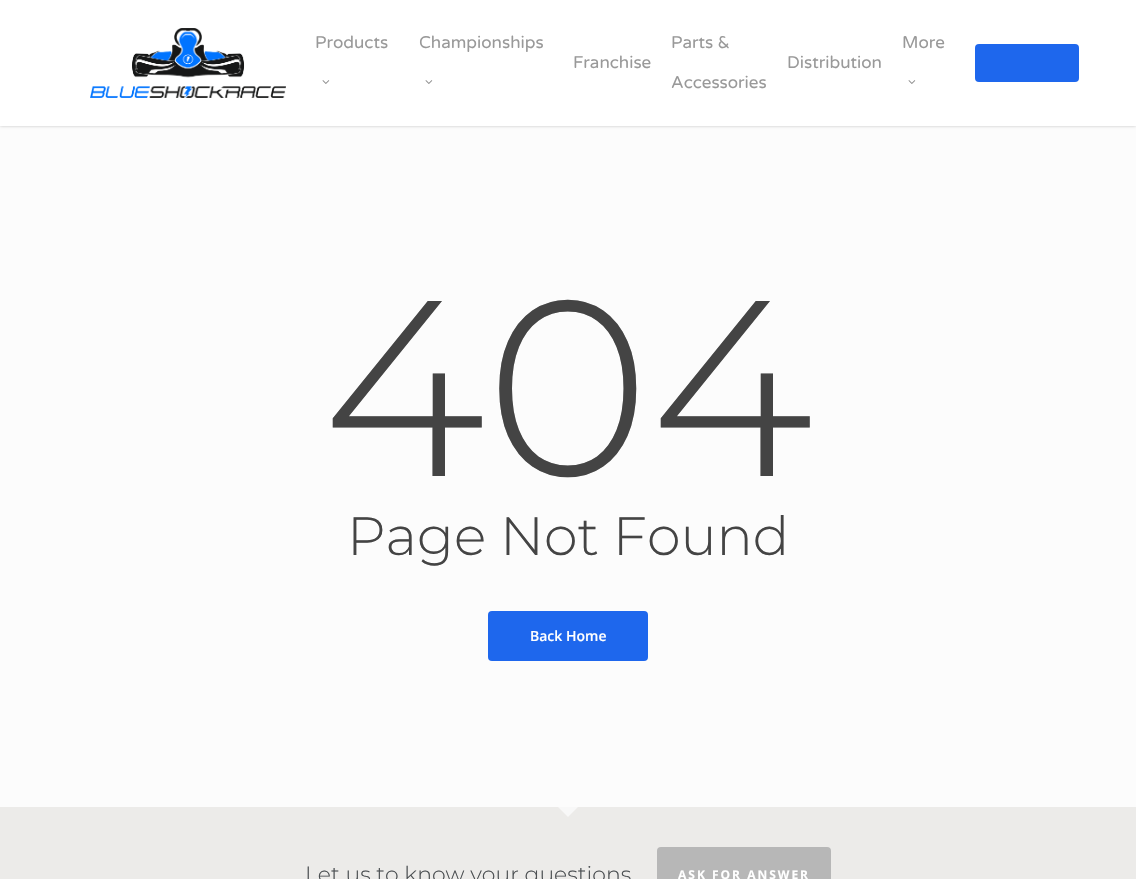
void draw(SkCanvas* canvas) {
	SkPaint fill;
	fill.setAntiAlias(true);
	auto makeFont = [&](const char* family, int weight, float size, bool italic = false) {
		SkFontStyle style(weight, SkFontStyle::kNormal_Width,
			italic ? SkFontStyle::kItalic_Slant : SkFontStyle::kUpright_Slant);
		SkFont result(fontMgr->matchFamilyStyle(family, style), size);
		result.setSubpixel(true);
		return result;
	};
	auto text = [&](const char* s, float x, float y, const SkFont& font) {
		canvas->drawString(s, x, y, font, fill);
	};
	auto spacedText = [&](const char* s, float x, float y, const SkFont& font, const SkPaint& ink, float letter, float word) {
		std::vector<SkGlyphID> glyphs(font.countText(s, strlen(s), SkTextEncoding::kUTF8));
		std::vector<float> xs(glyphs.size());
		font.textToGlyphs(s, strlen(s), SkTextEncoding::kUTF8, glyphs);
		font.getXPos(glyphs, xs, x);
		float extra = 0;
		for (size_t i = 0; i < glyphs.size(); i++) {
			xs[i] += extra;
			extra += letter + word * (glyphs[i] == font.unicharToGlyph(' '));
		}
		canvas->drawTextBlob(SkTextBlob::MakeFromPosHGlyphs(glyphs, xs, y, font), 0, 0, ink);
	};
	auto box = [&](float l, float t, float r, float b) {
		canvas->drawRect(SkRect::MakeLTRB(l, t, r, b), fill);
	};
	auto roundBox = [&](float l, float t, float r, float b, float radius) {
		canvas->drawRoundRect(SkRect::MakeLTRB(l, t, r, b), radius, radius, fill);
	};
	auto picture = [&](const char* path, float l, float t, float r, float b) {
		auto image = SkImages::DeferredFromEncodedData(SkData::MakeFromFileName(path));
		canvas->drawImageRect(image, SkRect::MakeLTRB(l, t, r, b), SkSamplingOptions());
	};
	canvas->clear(0xFFFCFCFC);
	fill.setColor(0x38000000);
	fill.setMaskFilter(SkMaskFilter::MakeBlur(kNormal_SkBlurStyle, 1.5f));
	canvas->drawRect(SkRect::MakeLTRB(0, 0, 1136, 126), fill);
	fill.setMaskFilter(nullptr);
	fill.setColor(0xFFFFFFFF);
	box(0, 0, 1136, 126);
	picture("image0.png", 90, 28, 286, 98);
	picture("image1.png", 322, 80, 330, 84);
	picture("image1.png", 425, 80, 433, 84);
	picture("image1.png", 908, 80, 916, 84);
	fill.setColor(0xFF1E67ED);
	roundBox(975, 44, 1079, 82, 4);
	roundBox(488, 611, 648, 661, 4);
	fill.setColor(0xFFECEBE9);
	box(0, 807, 1136, 879);
	fill.setColor(0xFFF8F8F8);
	canvas->drawPath(SkPathBuilder().moveTo(558, 807).lineTo(578, 807).lineTo(568, 817).close().detach(), fill);
	fill.setColor(0xFFB7B7B7);
	roundBox(657, 847, 831, 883, 4);
	auto font1 = makeFont("Varela Round", 400, 17);
	fill.setColor(0xFF999999);
	text("Products", 315, 48, font1);
	text("Championships", 419, 48, font1);
	text("Parts &", 671, 48, font1);
	text("Accessories", 671, 88, font1);
	text("More", 902, 48, font1);
	text("Franchise", 573, 68, font1);
	text("Distribution", 787, 68, font1);
	auto font2 = makeFont("Montserrat", 300, 250);
	fill.setColor(0xFF444444);
	text("404", 322, 476, font2);
	auto font3 = makeFont("Montserrat", 300, 54);
	text("Page Not Found", 347, 555, font3);
	auto font4 = makeFont("Open Sans", 600, 14);
	fill.setColor(0xFFFFFFFF);
	text("Back Home", 530, 641, font4);
	auto font5 = makeFont("Montserrat", 300, 22);
	fill.setColor(0xFF4B4F52);
	text("Let us to know your questions", 305, 882, font5);
	auto font6 = makeFont("Open Sans", 700, 12);
	fill.setColor(0xFFFFFFFF);
	spacedText("ASK FOR ANSWER", 678, 879, font6, fill, 2, 0);
}
